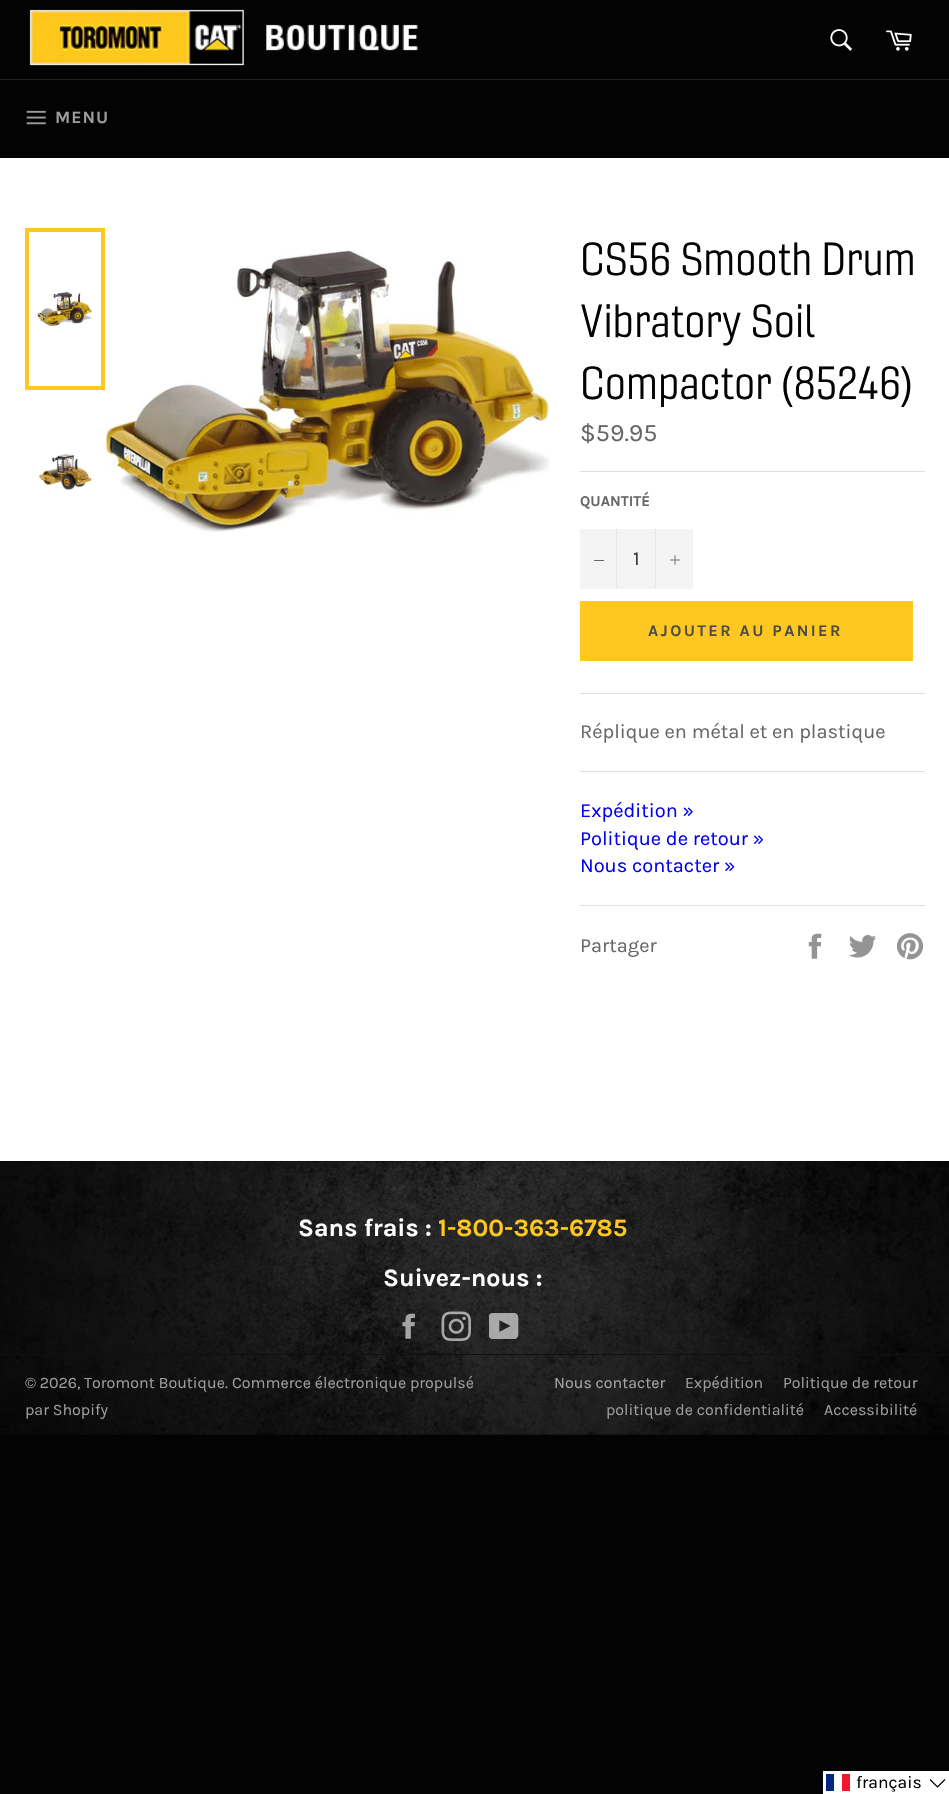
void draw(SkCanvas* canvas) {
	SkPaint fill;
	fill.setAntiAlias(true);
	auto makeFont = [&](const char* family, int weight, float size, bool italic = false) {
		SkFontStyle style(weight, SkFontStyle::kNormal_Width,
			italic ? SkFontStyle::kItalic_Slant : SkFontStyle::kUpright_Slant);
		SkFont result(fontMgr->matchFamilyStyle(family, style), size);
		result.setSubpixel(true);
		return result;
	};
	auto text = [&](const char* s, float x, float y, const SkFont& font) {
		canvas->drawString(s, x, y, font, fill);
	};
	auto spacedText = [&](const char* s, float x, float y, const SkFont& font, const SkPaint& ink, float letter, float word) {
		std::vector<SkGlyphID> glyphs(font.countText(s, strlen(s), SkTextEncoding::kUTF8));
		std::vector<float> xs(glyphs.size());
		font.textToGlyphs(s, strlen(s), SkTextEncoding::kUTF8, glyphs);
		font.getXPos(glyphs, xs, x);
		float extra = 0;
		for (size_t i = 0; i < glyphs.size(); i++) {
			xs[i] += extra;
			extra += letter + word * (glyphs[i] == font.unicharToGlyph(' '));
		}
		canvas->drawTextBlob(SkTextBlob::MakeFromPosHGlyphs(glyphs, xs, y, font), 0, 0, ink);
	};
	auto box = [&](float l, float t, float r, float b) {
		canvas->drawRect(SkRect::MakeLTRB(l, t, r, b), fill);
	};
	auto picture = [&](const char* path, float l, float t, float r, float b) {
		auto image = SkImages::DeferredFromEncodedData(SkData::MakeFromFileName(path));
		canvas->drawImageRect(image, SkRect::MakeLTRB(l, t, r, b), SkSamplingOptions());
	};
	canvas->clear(0xFF030303);
	picture("image0.png", 29, 9, 418, 66);
	picture("image1.png", 830, 29, 852, 51);
	picture("image2.png", 886, 30, 912, 51);
	fill.setColor(0xFF222222);
	box(0, 79, 949, 80);
	picture("image3.png", 26, 110, 46, 125);
	fill.setColor(0xFFFFFFFF);
	box(0, 158, 949, 1161);
	picture("image4.png", 37, 292, 92, 327);
	fill.setStyle(SkPaint::kStroke_Style);
	fill.setStrokeWidth(4);
	fill.setColor(0xFFFFC821);
	canvas->drawRect(SkRect::MakeLTRB(27, 230, 103, 388), fill);
	picture("image5.png", 39, 454, 92, 490);
	picture("image6.png", 105, 250, 550, 533);
	fill.setStyle(SkPaint::kFill_Style);
	fill.setColor(0xFFDEDEDE);
	box(580, 471, 925, 472);
	fill.setColor(0xFFF4F4F4);
	box(580, 529, 693, 589);
	fill.setColor(0xFFE7E7E7);
	box(616, 529, 617, 589);
	fill.setColor(0xFF666666);
	box(594, 560, 604, 561);
	fill.setColor(0xFFE7E7E7);
	box(655, 529, 656, 589);
	picture("image7.png", 670, 555, 680, 565);
	fill.setColor(0xFFFFC821);
	box(580, 601, 913, 661);
	fill.setColor(0xFFDEDEDE);
	box(580, 693, 925, 694);
	box(580, 771, 925, 772);
	box(580, 905, 925, 906);
	picture("image8.png", 808, 933, 822, 959);
	picture("image9.png", 849, 935, 877, 958);
	picture("image10.png", 896, 933, 924, 960);
	picture("image11.png", 0, 1161, 949, 1435);
	picture("image12.png", 402, 1313, 415, 1339);
	picture("image13.png", 441, 1311, 471, 1341);
	picture("image14.png", 489, 1313, 519, 1339);
	fill.setColor(0xFF101010);
	box(0, 1354, 949, 1355);
	fill.setColor(0xFFFFFFFF);
	box(823, 1771, 949, 1794);
	fill.setColor(0xFF00267F);
	box(826, 1774, 834, 1791);
	fill.setColor(0xFFF31830);
	box(842, 1774, 850, 1791);
	fill.setStyle(SkPaint::kStroke_Style);
	fill.setStrokeWidth(1.2f);
	fill.setColor(0xFF000000);
	canvas->drawPath(SkPathBuilder().moveTo(930, 1779.5f).lineTo(937.5f, 1787).lineTo(945, 1779.5f).detach(), fill);
	auto font1 = makeFont("Karla", 700, 17.5f);
	fill.setStyle(SkPaint::kFill_Style);
	fill.setColor(0xFF9D9D9D);
	spacedText("MENU", 55, 123, font1, fill, 1, 0);
	auto font2 = makeFont("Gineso", 400, 45);
	fill.setColor(0xFF030303);
	text("CS56 Smooth Drum", 580, 275, font2);
	text("Vibratory Soil", 580, 337, font2);
	text("Compactor (85246)", 580, 399, font2);
	auto font3 = makeFont("Karla", 400, 25);
	fill.setColor(0xFF666666);
	text("$59.95", 580, 441, font3);
	auto font4 = makeFont("Karla", 700, 15);
	text("QUANTITÉ", 580, 506, font4);
	auto font5 = makeFont("Karla", 400, 20);
	fill.setColor(0xFF333333);
	text("1", 633, 565, font5);
	auto font6 = makeFont("Karla", 700, 16.25f);
	fill.setColor(0xFF4C4C4C);
	spacedText("AJOUTER AU PANIER", 648, 636, font6, fill, 2.4f, 0);
	fill.setColor(0xFF666666);
	text("Réplique en métal et en plastique", 580, 738, font5);
	fill.setColor(0xFF0000EE);
	text("Expédition »", 580, 817, font5);
	text("Politique de retour »", 580, 845, font5);
	text("Nous contacter »", 580, 872, font5);
	fill.setColor(0xFF666666);
	text("Partager", 580, 952, font5);
	auto font7 = makeFont("Karla", 700, 25);
	fill.setColor(0xFFFFFFFF);
	text("Sans frais :", 298, 1236, font7);
	fill.setColor(0xFFFFC821);
	text("1-800-363-6785", 438, 1236, font7);
	fill.setColor(0xFFFFFFFF);
	text("Suivez-nous :", 383, 1286, font7);
	auto font8 = makeFont("Karla", 400, 16);
	fill.setColor(0xFF9D9D9D);
	text("© 2026,", 25, 1388, font8);
	text("Toromont Boutique", 84, 1388, font8);
	text(".", 225, 1388, font8);
	text("Commerce électronique propulsé", 232, 1388, font8);
	text("par Shopify", 25, 1415, font8);
	fill.setColor(0xFFA5A5A5);
	text("Nous contacter", 554, 1388, font8);
	fill.setColor(0xFF9D9D9D);
	text("Expédition", 685, 1388, font8);
	text("Politique de retour", 783, 1388, font8);
	text("politique de confidentialité", 606, 1415, font8);
	text("Accessibilité", 824, 1415, font8);
	auto font9 = makeFont("Karla", 400, 17.5f);
	fill.setColor(0xFF030303);
	text("français", 856, 1788, font9);
}
